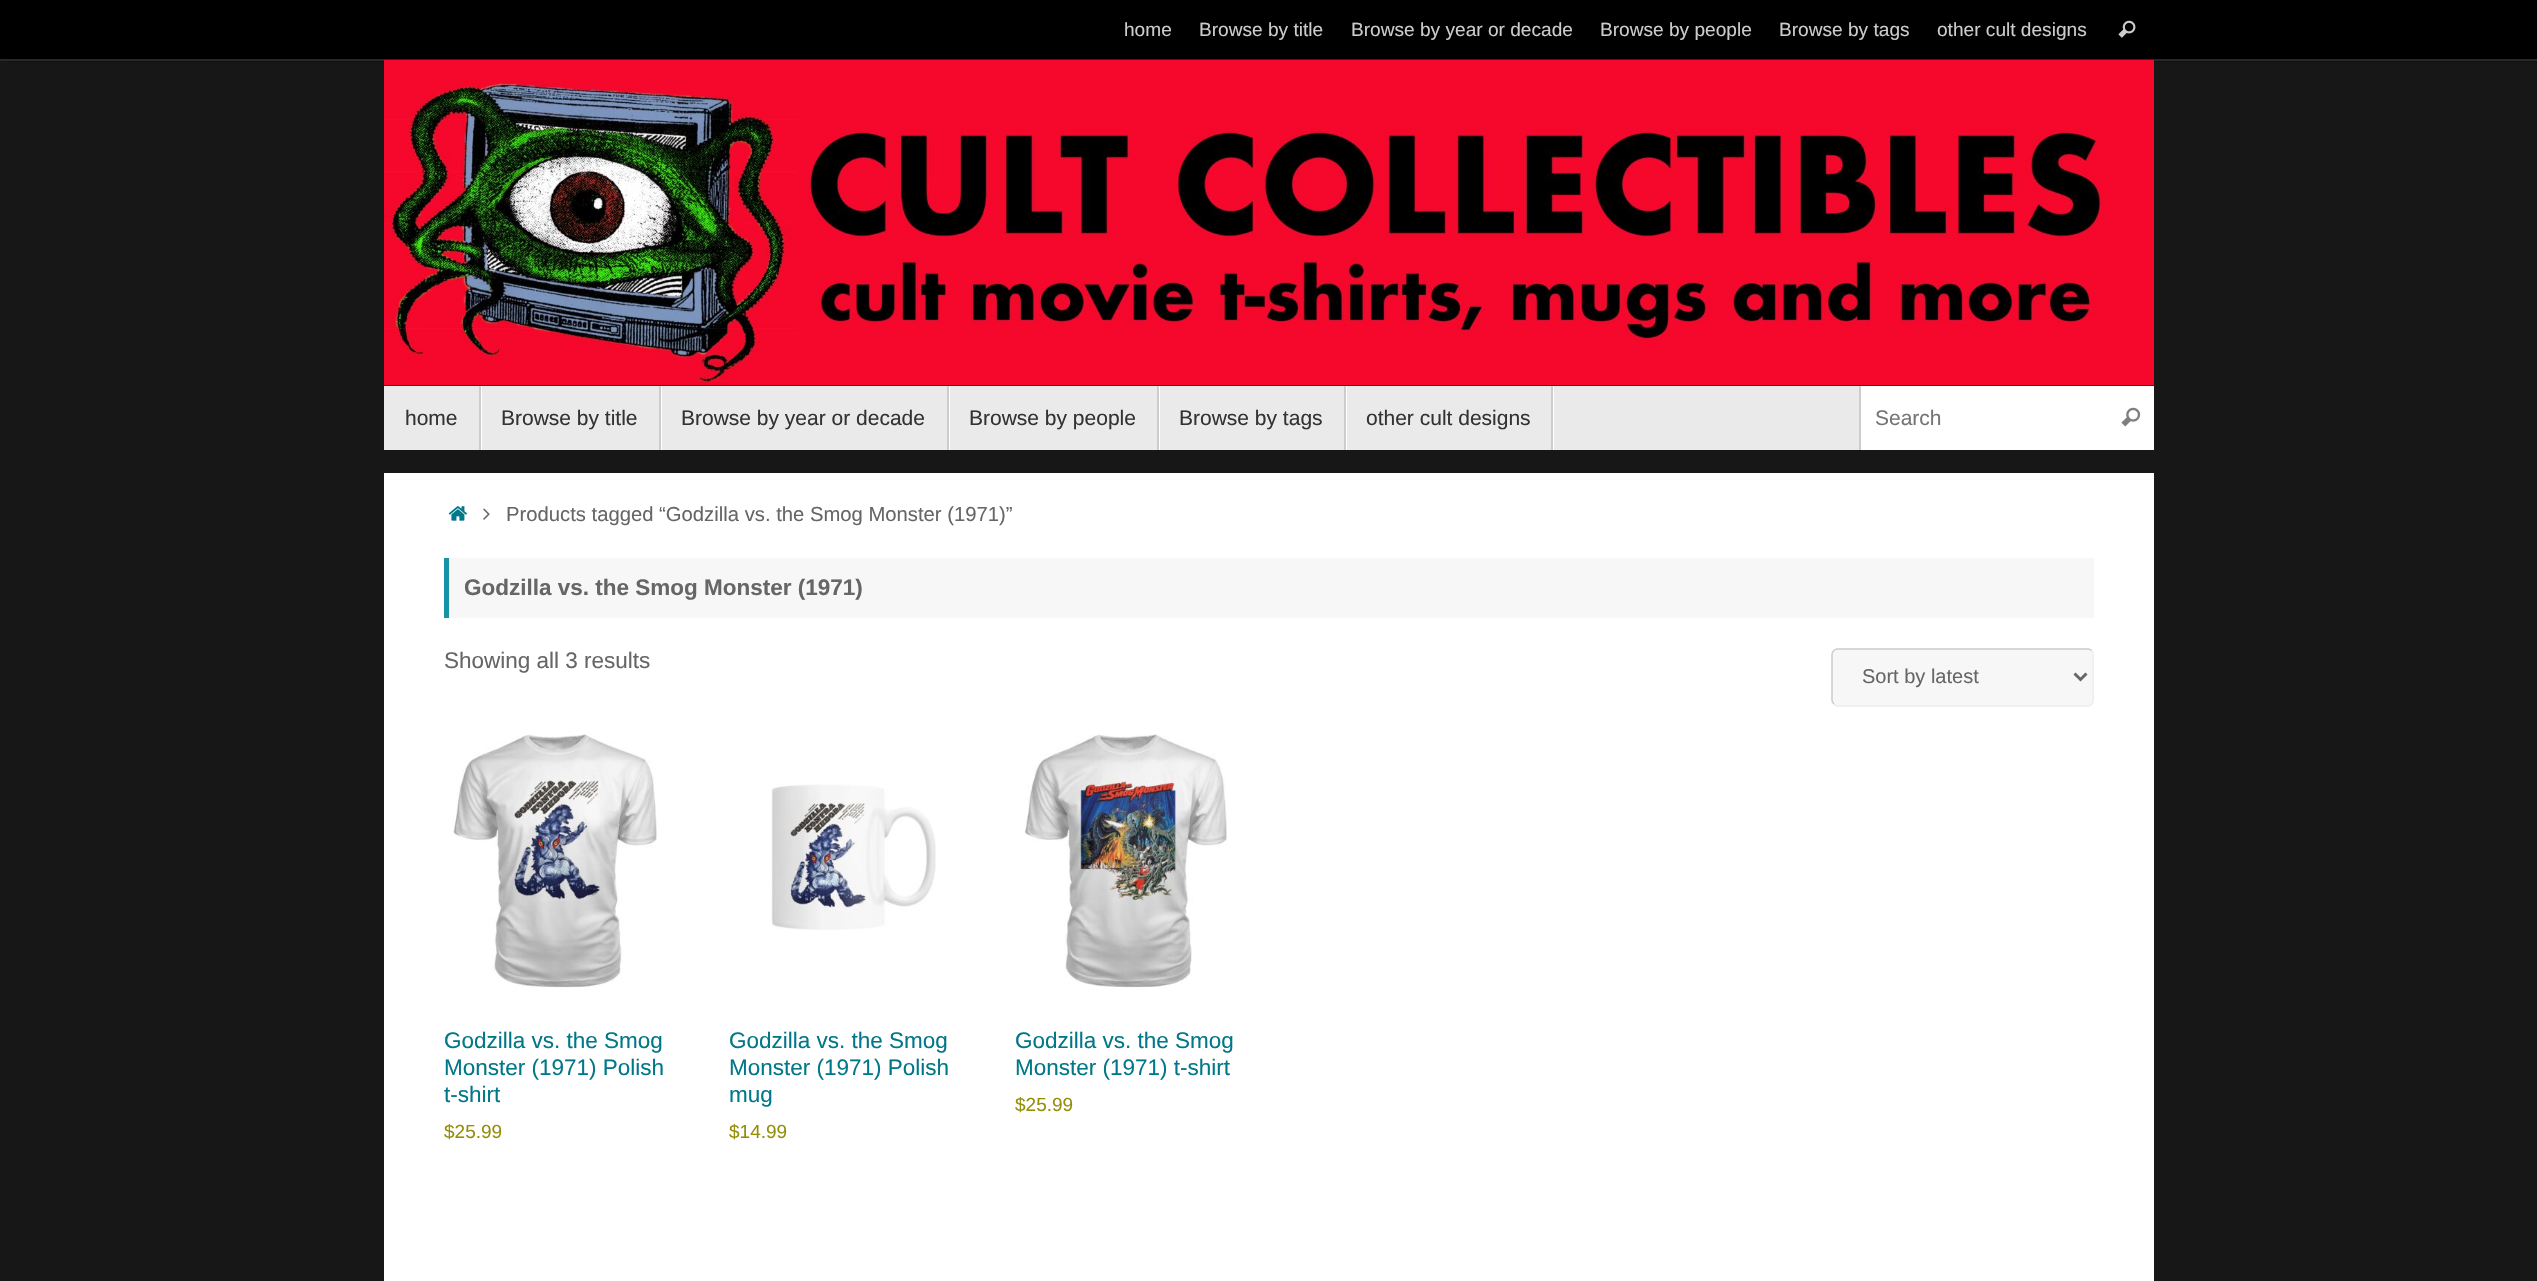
void draw(SkCanvas* canvas) {
	SkPaint fill;
	fill.setAntiAlias(true);
	auto makeFont = [&](const char* family, int weight, float size, bool italic = false) {
		SkFontStyle style(weight, SkFontStyle::kNormal_Width,
			italic ? SkFontStyle::kItalic_Slant : SkFontStyle::kUpright_Slant);
		SkFont result(fontMgr->matchFamilyStyle(family, style), size);
		result.setSubpixel(true);
		return result;
	};
	auto text = [&](const char* s, float x, float y, const SkFont& font) {
		canvas->drawString(s, x, y, font, fill);
	};
	auto box = [&](float l, float t, float r, float b) {
		canvas->drawRect(SkRect::MakeLTRB(l, t, r, b), fill);
	};
	auto roundBox = [&](float l, float t, float r, float b, float radius) {
		canvas->drawRoundRect(SkRect::MakeLTRB(l, t, r, b), radius, radius, fill);
	};
	auto picture = [&](const char* path, float l, float t, float r, float b) {
		auto image = SkImages::DeferredFromEncodedData(SkData::MakeFromFileName(path));
		canvas->drawImageRect(image, SkRect::MakeLTRB(l, t, r, b), SkSamplingOptions());
	};
	canvas->clear(0xFF171717);
	fill.setColor(0xFF000000);
	fill.setMaskFilter(SkMaskFilter::MakeBlur(kNormal_SkBlurStyle, 2));
	canvas->drawRect(SkRect::MakeLTRB(5, 0, 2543, 60), fill);
	fill.setMaskFilter(nullptr);
	box(0, 0, 2537, 59);
	fill.setColor(0xFF282828);
	box(0, 59, 2537, 61);
	picture("image0.png", 2118, 20, 2136, 38);
	picture("image1.png", 384, 60, 2154, 386);
	fill.setColor(0xFFEAEAEA);
	box(384, 386, 1859, 450);
	fill.setColor(0xFFFFFFFF);
	box(481, 386, 482, 450);
	fill.setColor(0xFFCCCCCC);
	box(479, 386, 481, 450);
	fill.setColor(0xFFFFFFFF);
	box(661, 386, 662, 450);
	fill.setColor(0xFFCCCCCC);
	box(659, 386, 661, 450);
	fill.setColor(0xFFFFFFFF);
	box(949, 386, 950, 450);
	fill.setColor(0xFFCCCCCC);
	box(947, 386, 949, 450);
	fill.setColor(0xFFFFFFFF);
	box(1159, 386, 1160, 450);
	fill.setColor(0xFFCCCCCC);
	box(1157, 386, 1159, 450);
	fill.setColor(0xFFFFFFFF);
	box(1346, 386, 1347, 450);
	fill.setColor(0xFFCCCCCC);
	box(1344, 386, 1346, 450);
	fill.setColor(0xFFFFFFFF);
	box(1553, 386, 1554, 450);
	fill.setColor(0xFFCCCCCC);
	box(1551, 386, 1553, 450);
	fill.setColor(0xFFFFFFFF);
	box(1861, 386, 2154, 450);
	fill.setColor(0xFFCCCCCC);
	box(1859, 386, 1861, 450);
	picture("image2.png", 2121, 407, 2141, 427);
	fill.setColor(0xFFFFFFFF);
	box(384, 473, 2154, 1281);
	picture("image3.png", 448, 506, 467, 521);
	picture("image4.png", 483, 508, 490, 520);
	fill.setColor(0xFFF7F7F7);
	box(449, 558, 2094, 618);
	fill.setColor(0xFF1693A5);
	box(444, 558, 449, 618);
	fill.setColor(0xFFF7F7F7);
	roundBox(1832, 648, 2094, 707, 6);
	fill.setStyle(SkPaint::kStroke_Style);
	fill.setStrokeWidth(1.5f);
	fill.setColor(0xFFEEEEEE);
	canvas->drawPath(SkPathBuilder().moveTo(2091.5f, 650.5f).cubicTo(2092.5f, 651.5f, 2093, 652.5f, 2093, 654).lineTo(2093, 700.5f).cubicTo(2093, 702, 2092.5f, 703, 2091.5f, 704).cubicTo(2090.5f, 705, 2089.5f, 706, 2088, 706).lineTo(1837.5f, 706).cubicTo(1836, 706, 1835, 705, 1834, 704).detach(), fill);
	fill.setColor(0xFFCCCCCC);
	canvas->drawPath(SkPathBuilder().moveTo(1834, 704).cubicTo(1833, 703, 1832, 702, 1832, 700.5f).lineTo(1832, 654).cubicTo(1832, 652.5f, 1833, 651.5f, 1834, 650.5f).cubicTo(1835, 649.5f, 1836, 649, 1837.5f, 649).lineTo(2088, 649).cubicTo(2089.5f, 649, 2090.5f, 649.5f, 2091.5f, 650.5f).detach(), fill);
	fill.setStrokeWidth(3);
	fill.setColor(0xFF666666);
	canvas->drawPath(SkPathBuilder().moveTo(2074.5f, 673.5f).lineTo(2080.5f, 679.5f).lineTo(2086.5f, 673.5f).detach(), fill);
	picture("image5.png", 452, 734, 657, 988);
	picture("image6.png", 771, 784, 936, 930);
	picture("image7.png", 1024, 734, 1227, 988);
	auto font1 = makeFont("Liberation Sans", 400, 19.1f);
	fill.setStyle(SkPaint::kFill_Style);
	fill.setColor(0xFFCCCCCC);
	text("home", 1124, 36, font1);
	text("Browse by title", 1199, 36, font1);
	text("Browse by year or decade", 1351, 36, font1);
	text("Browse by people", 1600, 36, font1);
	text("Browse by tags", 1779, 36, font1);
	text("other cult designs", 1937, 36, font1);
	auto font2 = makeFont("Liberation Sans", 400, 21);
	fill.setColor(0xFF333333);
	text("home", 405, 425, font2);
	text("Browse by title", 501, 425, font2);
	text("Browse by year or decade", 681, 425, font2);
	text("Browse by people", 969, 425, font2);
	text("Browse by tags", 1179, 425, font2);
	text("other cult designs", 1366, 425, font2);
	fill.setColor(0xFF757575);
	text("Search", 1875, 425, font2);
	auto font3 = makeFont("Liberation Sans", 400, 20.25f);
	fill.setColor(0xFF666666);
	text("Products tagged “Godzilla vs. the Smog Monster (1971)”", 506, 521, font3);
	auto font4 = makeFont("Liberation Sans", 700, 22.5f);
	text("Godzilla vs. the Smog Monster (1971)", 464, 595, font4);
	auto font5 = makeFont("Liberation Sans", 400, 22.5f);
	text("Showing all 3 results", 444, 668, font5);
	auto font6 = makeFont("Liberation Sans", 400, 20);
	text("Sort by latest", 1862, 683, font6);
	fill.setColor(0xFF017889);
	text("Godzilla vs. the Smog", 444, 1048, font5);
	text("Monster (1971) Polish", 444, 1075, font5);
	text("t-shirt", 444, 1102, font5);
	auto font7 = makeFont("Liberation Sans", 400, 19);
	fill.setColor(0xFF958E09);
	text("$25.99", 444, 1138, font7);
	fill.setColor(0xFF017889);
	text("Godzilla vs. the Smog", 729, 1048, font5);
	text("Monster (1971) Polish", 729, 1075, font5);
	text("mug", 729, 1102, font5);
	fill.setColor(0xFF958E09);
	text("$14.99", 729, 1138, font7);
	fill.setColor(0xFF017889);
	text("Godzilla vs. the Smog", 1015, 1048, font5);
	text("Monster (1971) t-shirt", 1015, 1075, font5);
	fill.setColor(0xFF958E09);
	text("$25.99", 1015, 1111, font7);
}
